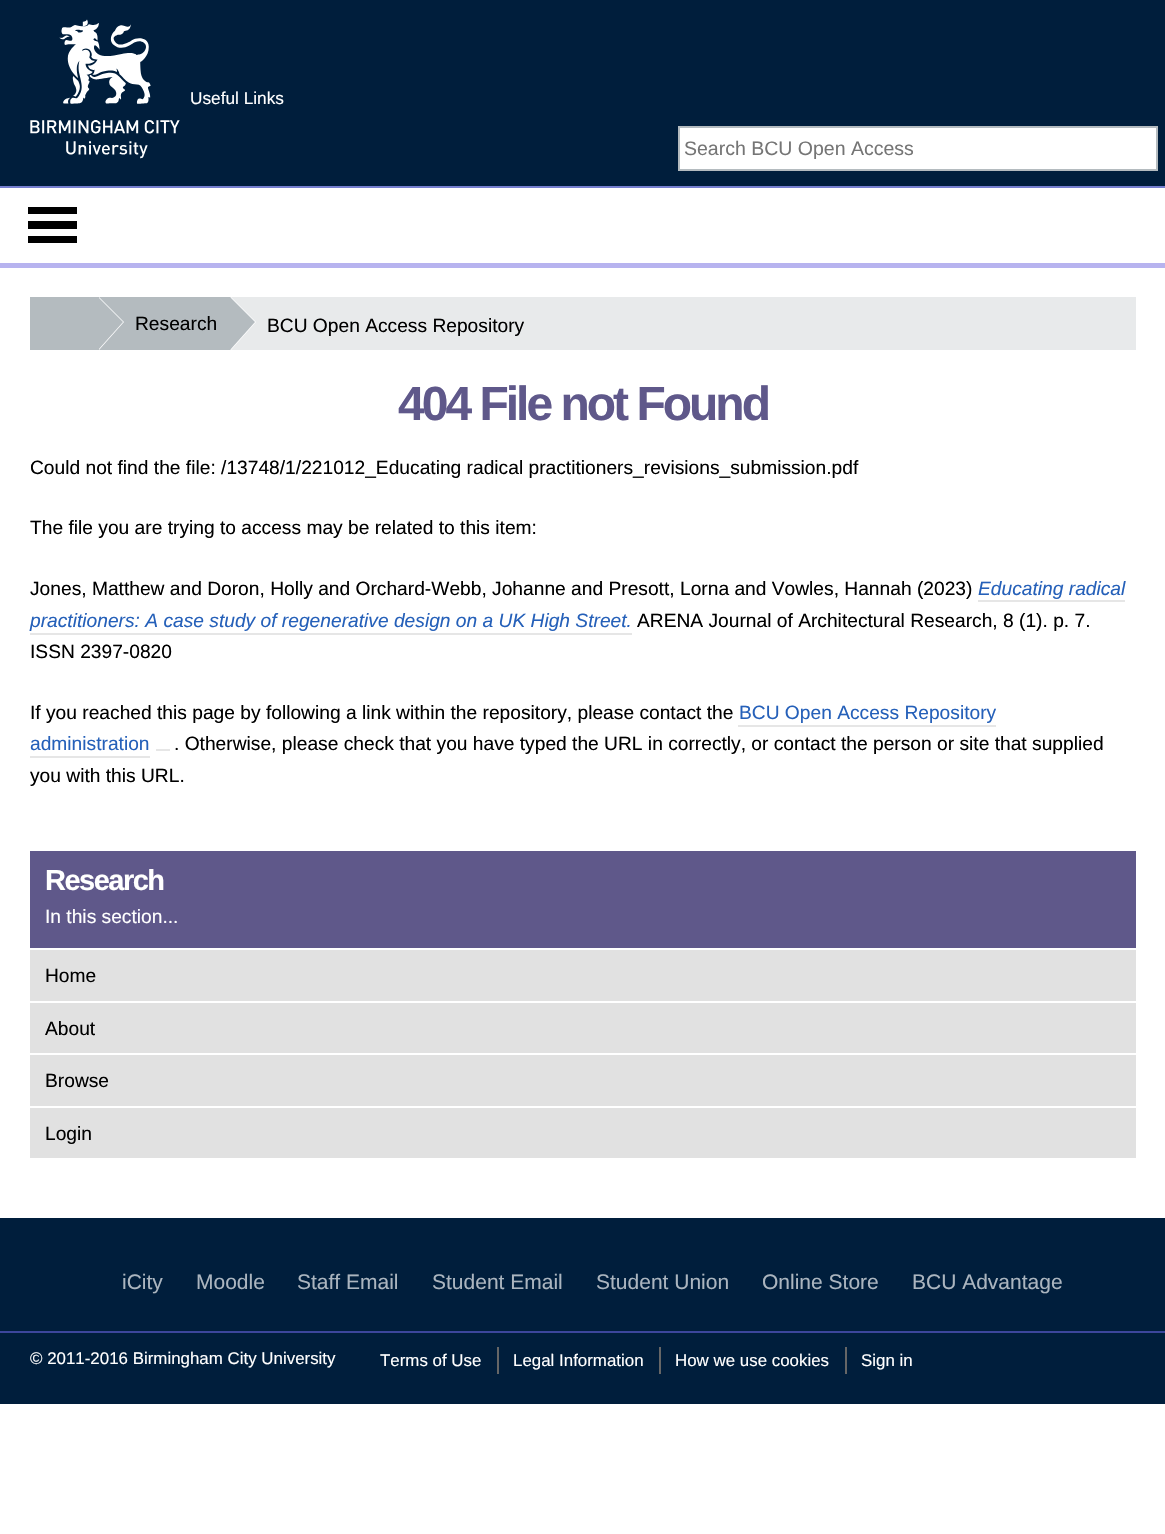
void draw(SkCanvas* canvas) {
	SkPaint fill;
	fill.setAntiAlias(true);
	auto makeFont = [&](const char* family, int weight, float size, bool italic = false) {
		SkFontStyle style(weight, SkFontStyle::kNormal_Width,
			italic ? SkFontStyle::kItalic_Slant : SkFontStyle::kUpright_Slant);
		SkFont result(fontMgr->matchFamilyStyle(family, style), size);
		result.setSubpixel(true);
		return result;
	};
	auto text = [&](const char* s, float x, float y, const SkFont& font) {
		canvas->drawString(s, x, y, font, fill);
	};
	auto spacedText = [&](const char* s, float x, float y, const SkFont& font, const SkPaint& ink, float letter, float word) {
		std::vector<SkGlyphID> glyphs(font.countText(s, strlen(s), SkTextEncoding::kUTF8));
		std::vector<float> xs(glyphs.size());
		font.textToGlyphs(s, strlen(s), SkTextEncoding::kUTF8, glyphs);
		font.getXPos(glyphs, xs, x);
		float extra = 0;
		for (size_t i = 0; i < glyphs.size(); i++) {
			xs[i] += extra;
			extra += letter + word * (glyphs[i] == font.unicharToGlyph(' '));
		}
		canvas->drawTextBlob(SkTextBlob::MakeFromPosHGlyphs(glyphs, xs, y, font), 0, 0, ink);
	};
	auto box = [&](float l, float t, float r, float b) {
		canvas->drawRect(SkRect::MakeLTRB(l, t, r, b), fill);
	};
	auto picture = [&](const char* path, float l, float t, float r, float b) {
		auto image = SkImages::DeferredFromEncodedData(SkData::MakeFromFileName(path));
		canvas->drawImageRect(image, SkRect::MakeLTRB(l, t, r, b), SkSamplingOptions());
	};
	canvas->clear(0xFFFFFFFF);
	fill.setColor(0xFF001E3C);
	box(0, 0, 1165, 186);
	fill.setColor(0xFF747ECF);
	box(0, 186, 1165, 188);
	picture("image0.png", 30, 19, 180, 159);
	fill.setColor(0xFFFFFFFF);
	canvas->drawRect(SkRect::MakeLTRB(679, 127, 1157, 170), fill);
	fill.setStyle(SkPaint::kStroke_Style);
	fill.setStrokeWidth(2);
	fill.setColor(0xFFB4BBBF);
	canvas->drawRect(SkRect::MakeLTRB(679, 127, 1157, 170), fill);
	fill.setStyle(SkPaint::kFill_Style);
	fill.setColor(0xFFB7B3EF);
	box(0, 263, 1165, 268);
	fill.setColor(0xFF000000);
	canvas->drawPath(SkPathBuilder().moveTo(77, 214).lineTo(28, 214).lineTo(28, 207).lineTo(77, 207).close().moveTo(77, 221).lineTo(28, 221).lineTo(28, 229).lineTo(77, 229).close().moveTo(77, 236).lineTo(28, 236).lineTo(28, 243).lineTo(77, 243).close().detach(), fill);
	fill.setColor(0xFFE8EAEB);
	box(230, 297, 1136, 350);
	fill.setColor(0xFFB4BBBF);
	box(30, 297, 230, 350);
	fill.setColor(0xFFFFFFFF);
	canvas->drawPath(SkPathBuilder().moveTo(99, 350).lineTo(99, 297).lineTo(124, 322).close().detach(), fill);
	fill.setColor(0xFFB4BBBF);
	canvas->drawPath(SkPathBuilder().moveTo(98, 350).lineTo(98, 297).lineTo(123, 322).close().detach(), fill);
	fill.setColor(0xFFFFFFFF);
	canvas->drawPath(SkPathBuilder().moveTo(231, 350).lineTo(231, 297).lineTo(256, 322).close().detach(), fill);
	fill.setColor(0xFFB4BBBF);
	canvas->drawPath(SkPathBuilder().moveTo(230, 350).lineTo(230, 297).lineTo(255, 322).close().detach(), fill);
	fill.setColor(0xFFE6E6E6);
	box(978, 600, 1125, 602);
	box(30, 633, 632, 635);
	box(738, 725, 996, 727);
	box(30, 756, 150, 758);
	box(156, 749, 170, 751);
	fill.setColor(0xFF5F588A);
	box(30, 851, 1136, 948);
	fill.setColor(0xFFE1E1E1);
	box(30, 950, 1136, 1158);
	fill.setColor(0xFFFFFFFF);
	box(30, 1001, 1136, 1003);
	box(30, 1053, 1136, 1055);
	box(30, 1106, 1136, 1108);
	fill.setColor(0xFF001E3C);
	box(0, 1218, 1165, 1404);
	fill.setColor(0xFF3C469C);
	box(0, 1331, 1165, 1333);
	fill.setColor(0xFF666666);
	box(497, 1347, 499, 1374);
	box(659, 1347, 661, 1374);
	box(845, 1347, 847, 1374);
	auto font1 = makeFont("Liberation Sans", 400, 17.25f);
	fill.setColor(0xFFFFFFFF);
	text("Useful Links", 190, 104, font1);
	auto font2 = makeFont("Liberation Sans", 400, 19.5f);
	fill.setColor(0xFF757575);
	text("Search BCU Open Access", 684, 155, font2);
	auto font3 = makeFont("Liberation Sans", 400, 19.2f);
	fill.setColor(0xFF000000);
	text("Research", 135, 330, font3);
	text("BCU Open Access Repository", 267, 332, font3);
	auto font4 = makeFont("Liberation Sans", 700, 48);
	fill.setColor(0xFF5F588A);
	spacedText("404 File not Found", 398, 420, font4, fill, -3, 0);
	fill.setColor(0xFF000000);
	text("Could not find the file: /13748/1/221012_Educating radical practitioners_revisions_submission.pdf", 30, 474, font3);
	text("The file you are trying to access may be related to this item:", 30, 534, font3);
	text("Jones, Matthew and Doron, Holly and Orchard-Webb, Johanne and Presott, Lorna and Vowles, Hannah (2023)", 30, 595, font3);
	auto font5 = makeFont("Liberation Sans", 400, 19.2f, true);
	fill.setColor(0xFF2560B9);
	text("Educating radical", 978, 595, font5);
	text("practitioners: A case study of regenerative design on a UK High Street.", 30, 627, font5);
	fill.setColor(0xFF000000);
	text("ARENA Journal of Architectural Research, 8 (1). p. 7.", 637, 627, font3);
	text("ISSN 2397-0820", 30, 658, font3);
	text("If you reached this page by following a link within the repository, please contact the", 30, 719, font3);
	fill.setColor(0xFF2560B9);
	text("BCU Open Access Repository", 739, 719, font3);
	text("administration", 30, 750, font3);
	fill.setColor(0xFF000000);
	text(". Otherwise, please check that you have typed the URL in correctly, or contact the person or site that supplied", 174, 750, font3);
	text("you with this URL.", 30, 782, font3);
	auto font6 = makeFont("Liberation Sans", 700, 29);
	fill.setColor(0xFFFFFFFF);
	spacedText("Research", 45, 890, font6, fill, -1.5f, 0);
	text("In this section...", 45, 923, font3);
	fill.setColor(0xFF000000);
	text("Home", 45, 982, font3);
	text("About", 45, 1035, font3);
	text("Browse", 45, 1087, font3);
	text("Login", 45, 1140, font3);
	auto font7 = makeFont("Liberation Sans", 400, 21);
	fill.setColor(0xFFABB5BF);
	text("iCity", 122, 1289, font7);
	text("Moodle", 196, 1289, font7);
	text("Staff Email", 297, 1289, font7);
	text("Student Email", 432, 1289, font7);
	text("Student Union", 596, 1289, font7);
	text("Online Store", 762, 1289, font7);
	text("BCU Advantage", 912, 1289, font7);
	auto font8 = makeFont("Liberation Sans", 400, 16.9f);
	fill.setColor(0xFFFFFFFF);
	text("© 2011-2016 Birmingham City University", 30, 1364, font8);
	text("Terms of Use", 380, 1366, font8);
	text("Legal Information", 513, 1366, font8);
	text("How we use cookies", 675, 1366, font8);
	text("Sign in", 861, 1366, font8);
}
